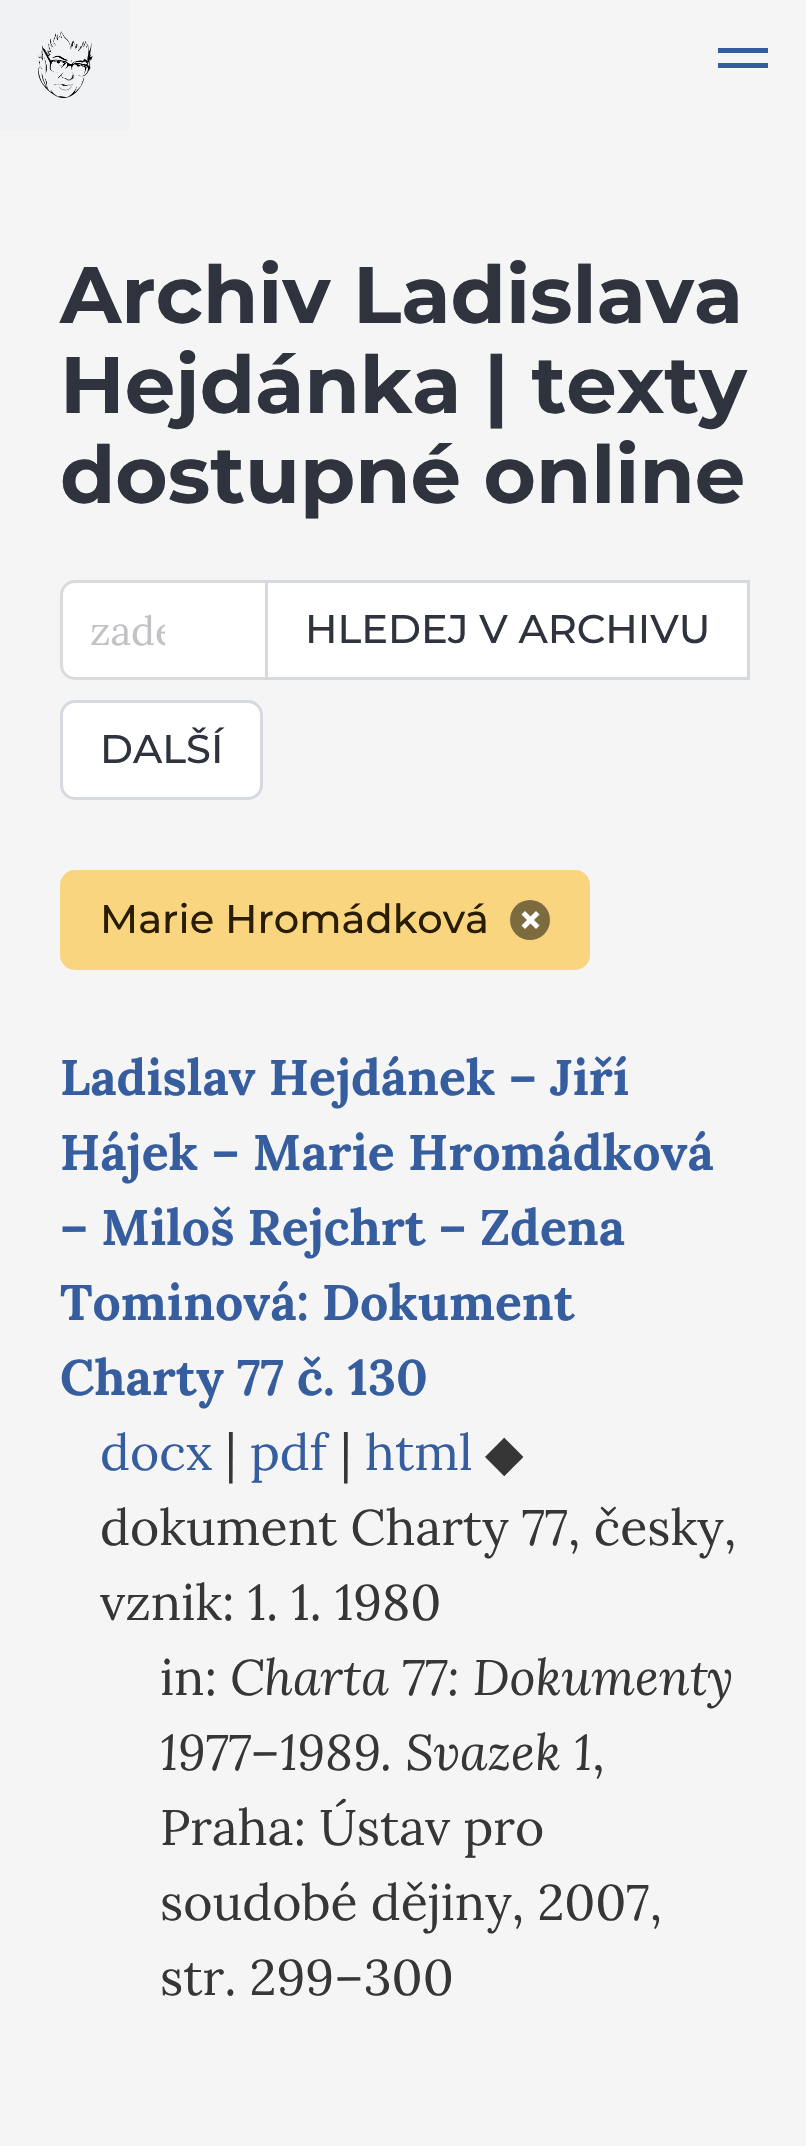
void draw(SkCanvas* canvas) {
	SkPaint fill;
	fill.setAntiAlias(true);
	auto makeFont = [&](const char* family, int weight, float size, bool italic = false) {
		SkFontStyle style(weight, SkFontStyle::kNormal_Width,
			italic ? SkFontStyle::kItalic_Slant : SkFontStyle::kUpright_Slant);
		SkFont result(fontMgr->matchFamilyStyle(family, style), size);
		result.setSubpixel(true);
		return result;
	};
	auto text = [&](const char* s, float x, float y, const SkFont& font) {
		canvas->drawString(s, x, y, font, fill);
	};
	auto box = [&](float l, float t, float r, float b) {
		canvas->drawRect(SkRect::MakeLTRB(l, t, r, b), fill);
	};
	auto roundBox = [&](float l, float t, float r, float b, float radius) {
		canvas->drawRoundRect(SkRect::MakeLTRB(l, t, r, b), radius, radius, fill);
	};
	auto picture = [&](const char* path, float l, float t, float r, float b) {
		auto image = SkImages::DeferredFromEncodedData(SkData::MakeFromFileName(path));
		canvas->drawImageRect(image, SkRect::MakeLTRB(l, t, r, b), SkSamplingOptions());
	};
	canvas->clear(0xFFF5F5F5);
	fill.setColor(0xFFF0F2F4);
	box(0, 0, 130, 130);
	picture("image0.png", 38, 31, 93, 98);
	fill.setColor(0xFF365E9F);
	box(718, 48, 768, 53);
	box(718, 63, 768, 68);
	fill.setColor(0xFFFFFFFF);
	canvas->drawPath(SkPathBuilder().moveTo(75, 581.5f).lineTo(266.5f, 581.5f).lineTo(266.5f, 678.5f).lineTo(75, 678.5f).cubicTo(67.5f, 678.5f, 61.5f, 672.5f, 61.5f, 665).lineTo(61.5f, 595).cubicTo(61.5f, 587.5f, 67.5f, 581.5f, 75, 581.5f).close().detach(), fill);
	fill.setStyle(SkPaint::kStroke_Style);
	fill.setStrokeWidth(3);
	fill.setColor(0xFFDBDBDB);
	canvas->drawPath(SkPathBuilder().moveTo(75, 581.5f).lineTo(266.5f, 581.5f).lineTo(266.5f, 678.5f).lineTo(75, 678.5f).cubicTo(67.5f, 678.5f, 61.5f, 672.5f, 61.5f, 665).lineTo(61.5f, 595).cubicTo(61.5f, 587.5f, 67.5f, 581.5f, 75, 581.5f).close().detach(), fill);
	fill.setStyle(SkPaint::kFill_Style);
	fill.setColor(0xFFFFFFFF);
	canvas->drawRect(SkRect::MakeLTRB(266.5f, 581.5f, 748.5f, 678.5f), fill);
	fill.setStyle(SkPaint::kStroke_Style);
	fill.setColor(0xFFD6D9E0);
	canvas->drawRect(SkRect::MakeLTRB(266.5f, 581.5f, 748.5f, 678.5f), fill);
	fill.setStyle(SkPaint::kFill_Style);
	fill.setColor(0xFFFFFFFF);
	canvas->drawRoundRect(SkRect::MakeLTRB(61.5f, 701.5f, 261.5f, 798.5f), 13.5f, 13.5f, fill);
	fill.setStyle(SkPaint::kStroke_Style);
	fill.setColor(0xFFD6D9E0);
	canvas->drawRoundRect(SkRect::MakeLTRB(61.5f, 701.5f, 261.5f, 798.5f), 13.5f, 13.5f, fill);
	fill.setStyle(SkPaint::kFill_Style);
	fill.setColor(0xFFFAD580);
	roundBox(60, 870, 590, 970, 15);
	fill.setColor(0xFF7D6B40);
	canvas->drawCircle(530, 920, 20, fill);
	fill.setColor(0xFFFFFFFF);
	canvas->drawPath(SkPathBuilder().moveTo(525, 911).lineTo(539.5f, 925.5f).lineTo(536, 929).lineTo(521.5f, 914.5f).close().detach(), fill);
	canvas->drawPath(SkPathBuilder().moveTo(536, 911).lineTo(539.5f, 914.5f).lineTo(525, 929).lineTo(521.5f, 925.5f).close().detach(), fill);
	auto font1 = makeFont("Montserrat", 700, 80);
	fill.setColor(0xFF2E333D);
	text("Archiv Ladislava", 60, 323, font1);
	text("Hejdánka | texty", 60, 413, font1);
	text("dostupné online", 60, 503, font1);
	canvas->save();
	canvas->clipRect(SkRect::MakeLTRB(90, 605, 165, 655));
	auto font2 = makeFont("Lora", 400, 40);
	fill.setColor(0xFFC0C2C5);
	text("zade", 90, 645, font2);
	canvas->restore();
	auto font3 = makeFont("Montserrat", 500, 40);
	fill.setColor(0xFF2E333D);
	text("HLEDEJ V ARCHIVU", 305, 643, font3);
	text("DALŠÍ", 100, 763, font3);
	fill.setColor(0xFF291D00);
	text("Marie Hromádková", 100, 933, font3);
	auto font4 = makeFont("Lora", 700, 50);
	fill.setColor(0xFF365E9F);
	text("Ladislav Hejdánek – Jiří", 60, 1095, font4);
	text("Hájek – Marie Hromádková", 60, 1170, font4);
	text("– Miloš Rejchrt – Zdena", 60, 1245, font4);
	text("Tominová: Dokument", 60, 1320, font4);
	text("Charty 77 č. 130", 60, 1395, font4);
	auto font5 = makeFont("Lora", 400, 50);
	text("docx", 100, 1470, font5);
	fill.setColor(0xFF363636);
	text("|", 225, 1470, font5);
	fill.setColor(0xFF365E9F);
	text("pdf", 250, 1470, font5);
	fill.setColor(0xFF363636);
	text("|", 340, 1470, font5);
	fill.setColor(0xFF365E9F);
	text("html", 365, 1470, font5);
	auto font6 = makeFont("DejaVu Sans", 400, 50);
	fill.setColor(0xFF363636);
	text("◆", 485, 1470, font6);
	text("dokument Charty 77, česky,", 100, 1545, font5);
	text("vznik: 1. 1. 1980", 100, 1620, font5);
	text("in:", 160, 1695, font5);
	auto font7 = makeFont("Lora", 400, 50, true);
	text("Charta 77: Dokumenty", 230, 1695, font7);
	text("1977–1989. Svazek 1", 160, 1770, font7);
	text(",", 592, 1770, font5);
	text("Praha: Ústav pro", 160, 1845, font5);
	text("soudobé dějiny, 2007,", 160, 1920, font5);
	text("str. 299–300", 160, 1995, font5);
}
